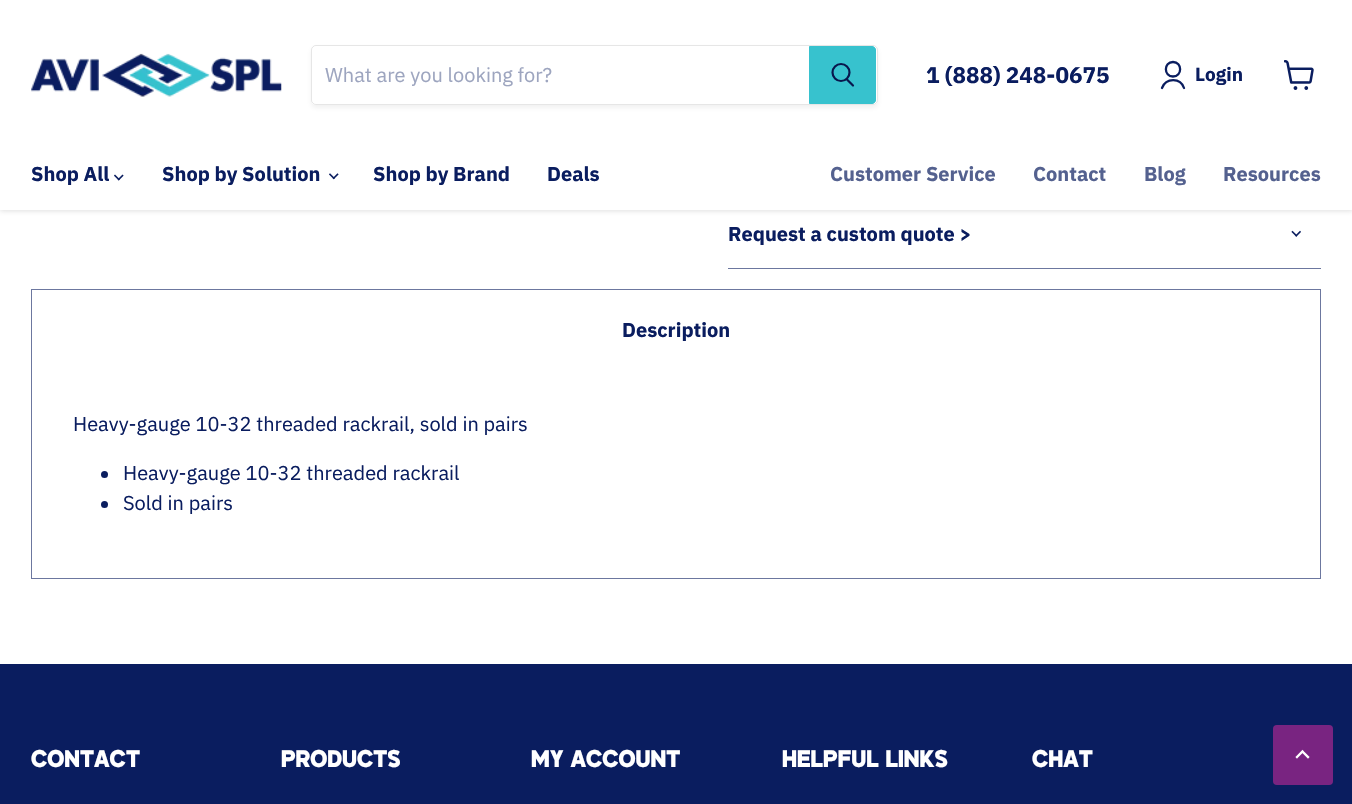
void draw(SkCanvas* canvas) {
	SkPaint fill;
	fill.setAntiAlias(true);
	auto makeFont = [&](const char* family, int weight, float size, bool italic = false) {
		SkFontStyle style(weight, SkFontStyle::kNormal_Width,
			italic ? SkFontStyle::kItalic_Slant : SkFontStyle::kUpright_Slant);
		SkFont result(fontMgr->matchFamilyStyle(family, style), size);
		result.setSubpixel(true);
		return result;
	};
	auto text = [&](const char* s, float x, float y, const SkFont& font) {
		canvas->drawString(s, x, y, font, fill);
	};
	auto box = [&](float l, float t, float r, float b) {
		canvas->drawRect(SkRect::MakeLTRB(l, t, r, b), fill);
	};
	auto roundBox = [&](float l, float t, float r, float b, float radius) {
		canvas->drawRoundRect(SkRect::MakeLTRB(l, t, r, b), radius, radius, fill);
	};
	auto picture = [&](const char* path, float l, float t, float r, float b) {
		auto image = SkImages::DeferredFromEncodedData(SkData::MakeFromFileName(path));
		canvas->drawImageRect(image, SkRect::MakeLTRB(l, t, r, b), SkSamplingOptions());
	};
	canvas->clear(0xFFFFFFFF);
	fill.setColor(0x40808080);
	fill.setMaskFilter(SkMaskFilter::MakeBlur(kNormal_SkBlurStyle, 2.5f));
	canvas->drawRect(SkRect::MakeLTRB(0, 1, 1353, 211), fill);
	fill.setMaskFilter(nullptr);
	fill.setColor(0xFFFFFFFF);
	box(0, 0, 1352, 210);
	picture("image0.png", 31, 53, 282, 97);
	canvas->save();
	canvas->clipPath(SkPathBuilder(SkPathFillType::kEvenOdd).moveTo(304, 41).lineTo(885, 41).lineTo(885, 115).lineTo(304, 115).close().moveTo(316, 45).lineTo(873, 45).cubicTo(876, 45, 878, 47, 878, 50).lineTo(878, 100).cubicTo(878, 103, 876, 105, 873, 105).lineTo(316, 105).cubicTo(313, 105, 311, 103, 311, 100).lineTo(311, 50).cubicTo(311, 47, 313, 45, 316, 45).close().detach(), true);
	fill.setColor(0x1C808080);
	fill.setMaskFilter(SkMaskFilter::MakeBlur(kNormal_SkBlurStyle, 2));
	canvas->drawRoundRect(SkRect::MakeLTRB(311, 48, 878, 108), 5, 5, fill);
	fill.setMaskFilter(nullptr);
	canvas->restore();
	fill.setStyle(SkPaint::kStroke_Style);
	fill.setStrokeWidth(1);
	fill.setColor(0x33808080);
	canvas->drawRoundRect(SkRect::MakeLTRB(311.5f, 45.5f, 877.5f, 104.5f), 4.5f, 4.5f, fill);
	fill.setStyle(SkPaint::kFill_Style);
	fill.setColor(0xFF37C2CE);
	canvas->drawPath(SkPathBuilder().moveTo(809.5f, 46.5f).lineTo(872, 46.5f).cubicTo(874, 46.5f, 875.5f, 48, 875.5f, 50).lineTo(875.5f, 100).cubicTo(875.5f, 102, 874, 103.5f, 872, 103.5f).lineTo(809.5f, 103.5f).close().detach(), fill);
	fill.setStyle(SkPaint::kStroke_Style);
	canvas->drawPath(SkPathBuilder().moveTo(809.5f, 46.5f).lineTo(872, 46.5f).cubicTo(874, 46.5f, 875.5f, 48, 875.5f, 50).lineTo(875.5f, 100).cubicTo(875.5f, 102, 874, 103.5f, 872, 103.5f).lineTo(809.5f, 103.5f).close().detach(), fill);
	fill.setStrokeWidth(2.2f);
	fill.setStrokeCap(SkPaint::kRound_Cap);
	fill.setColor(0xFF08174D);
	canvas->drawPath(SkPathBuilder().moveTo(853, 85.5f).lineTo(847, 79.5f).detach(), fill);
	fill.setStrokeCap(SkPaint::kButt_Cap);
	canvas->drawCircle(841, 72.5f, 8.5f, fill);
	fill.setStrokeWidth(2.3f);
	fill.setStrokeCap(SkPaint::kRound_Cap);
	fill.setStrokeJoin(SkPaint::kRound_Join);
	fill.setColor(0xFF0A1D5F);
	canvas->drawPath(SkPathBuilder().moveTo(1173, 76.5f).cubicTo(1182.5f, 76.5f, 1182.5f, 62, 1173, 62).cubicTo(1163.5f, 62, 1163.5f, 76.5f, 1173, 76.5f).close().moveTo(1184, 88).cubicTo(1180.5f, 77.5f, 1166, 77.5f, 1162, 88).detach(), fill);
	picture("image1.png", 1284, 60, 1314, 90);
	picture("image2.png", 114, 174, 124, 181);
	picture("image3.png", 329, 173, 339, 180);
	fill.setStyle(SkPaint::kFill_Style);
	fill.setColor(0xFF6C779F);
	box(728, 268, 1321, 269);
	picture("image4.png", 1291, 230, 1301, 237);
	box(31, 289, 1321, 290);
	box(1320, 289, 1321, 579);
	box(31, 289, 32, 371);
	box(31, 578, 1321, 579);
	box(31, 371, 32, 579);
	fill.setColor(0xFF0A1D5F);
	canvas->drawCircle(104.5f, 474.5f, 3.5f, fill);
	canvas->drawCircle(104.5f, 504.5f, 3.5f, fill);
	box(0, 664, 1352, 804);
	fill.setColor(0xFF792481);
	roundBox(1273, 725, 1333, 785, 4);
	fill.setStyle(SkPaint::kStroke_Style);
	fill.setStrokeCap(SkPaint::kSquare_Cap);
	fill.setStrokeJoin(SkPaint::kMiter_Join);
	fill.setColor(0xFFFFFFFF);
	canvas->drawPath(SkPathBuilder().moveTo(1302.5f, 751.5f).lineTo(1297, 757).moveTo(1302.5f, 751.5f).lineTo(1308, 757).detach(), fill);
	auto font1 = makeFont("IBM Plex Sans", 400, 20);
	fill.setStyle(SkPaint::kFill_Style);
	fill.setColor(0xFF9DA5BF);
	text("What are you looking for?", 325, 82, font1);
	auto font2 = makeFont("IBM Plex Sans", 700, 22.5f);
	fill.setColor(0xFF0A1D5F);
	text("1 (888) 248-0675", 926, 83, font2);
	auto font3 = makeFont("IBM Plex Sans", 700, 19);
	text("Login", 1195, 81, font3);
	auto font4 = makeFont("IBM Plex Sans", 700, 20);
	text("Shop All", 31, 181, font4);
	text("Shop by Solution", 162, 181, font4);
	text("Shop by Brand", 373, 181, font4);
	text("Deals", 547, 181, font4);
	fill.setColor(0xFF54618F);
	text("Customer Service", 830, 181, font4);
	text("Contact", 1033, 181, font4);
	text("Blog", 1144, 181, font4);
	text("Resources", 1223, 181, font4);
	fill.setColor(0xFF0A1D5F);
	text("Request a custom quote >", 728, 241, font4);
	text("Description", 622, 337, font4);
	text("Heavy-gauge 10-32 threaded rackrail, sold in pairs", 73, 431, font1);
	text("Heavy-gauge 10-32 threaded rackrail", 123, 480, font1);
	text("Sold in pairs", 123, 510, font1);
	auto font5 = makeFont("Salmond", 700, 22.5f);
	fill.setColor(0xFFFFFFFF);
	text("CONTACT", 31, 767, font5);
	text("PRODUCTS", 281, 767, font5);
	text("MY ACCOUNT", 531, 767, font5);
	text("HELPFUL LINKS", 782, 767, font5);
	text("CHAT", 1032, 767, font5);
}
